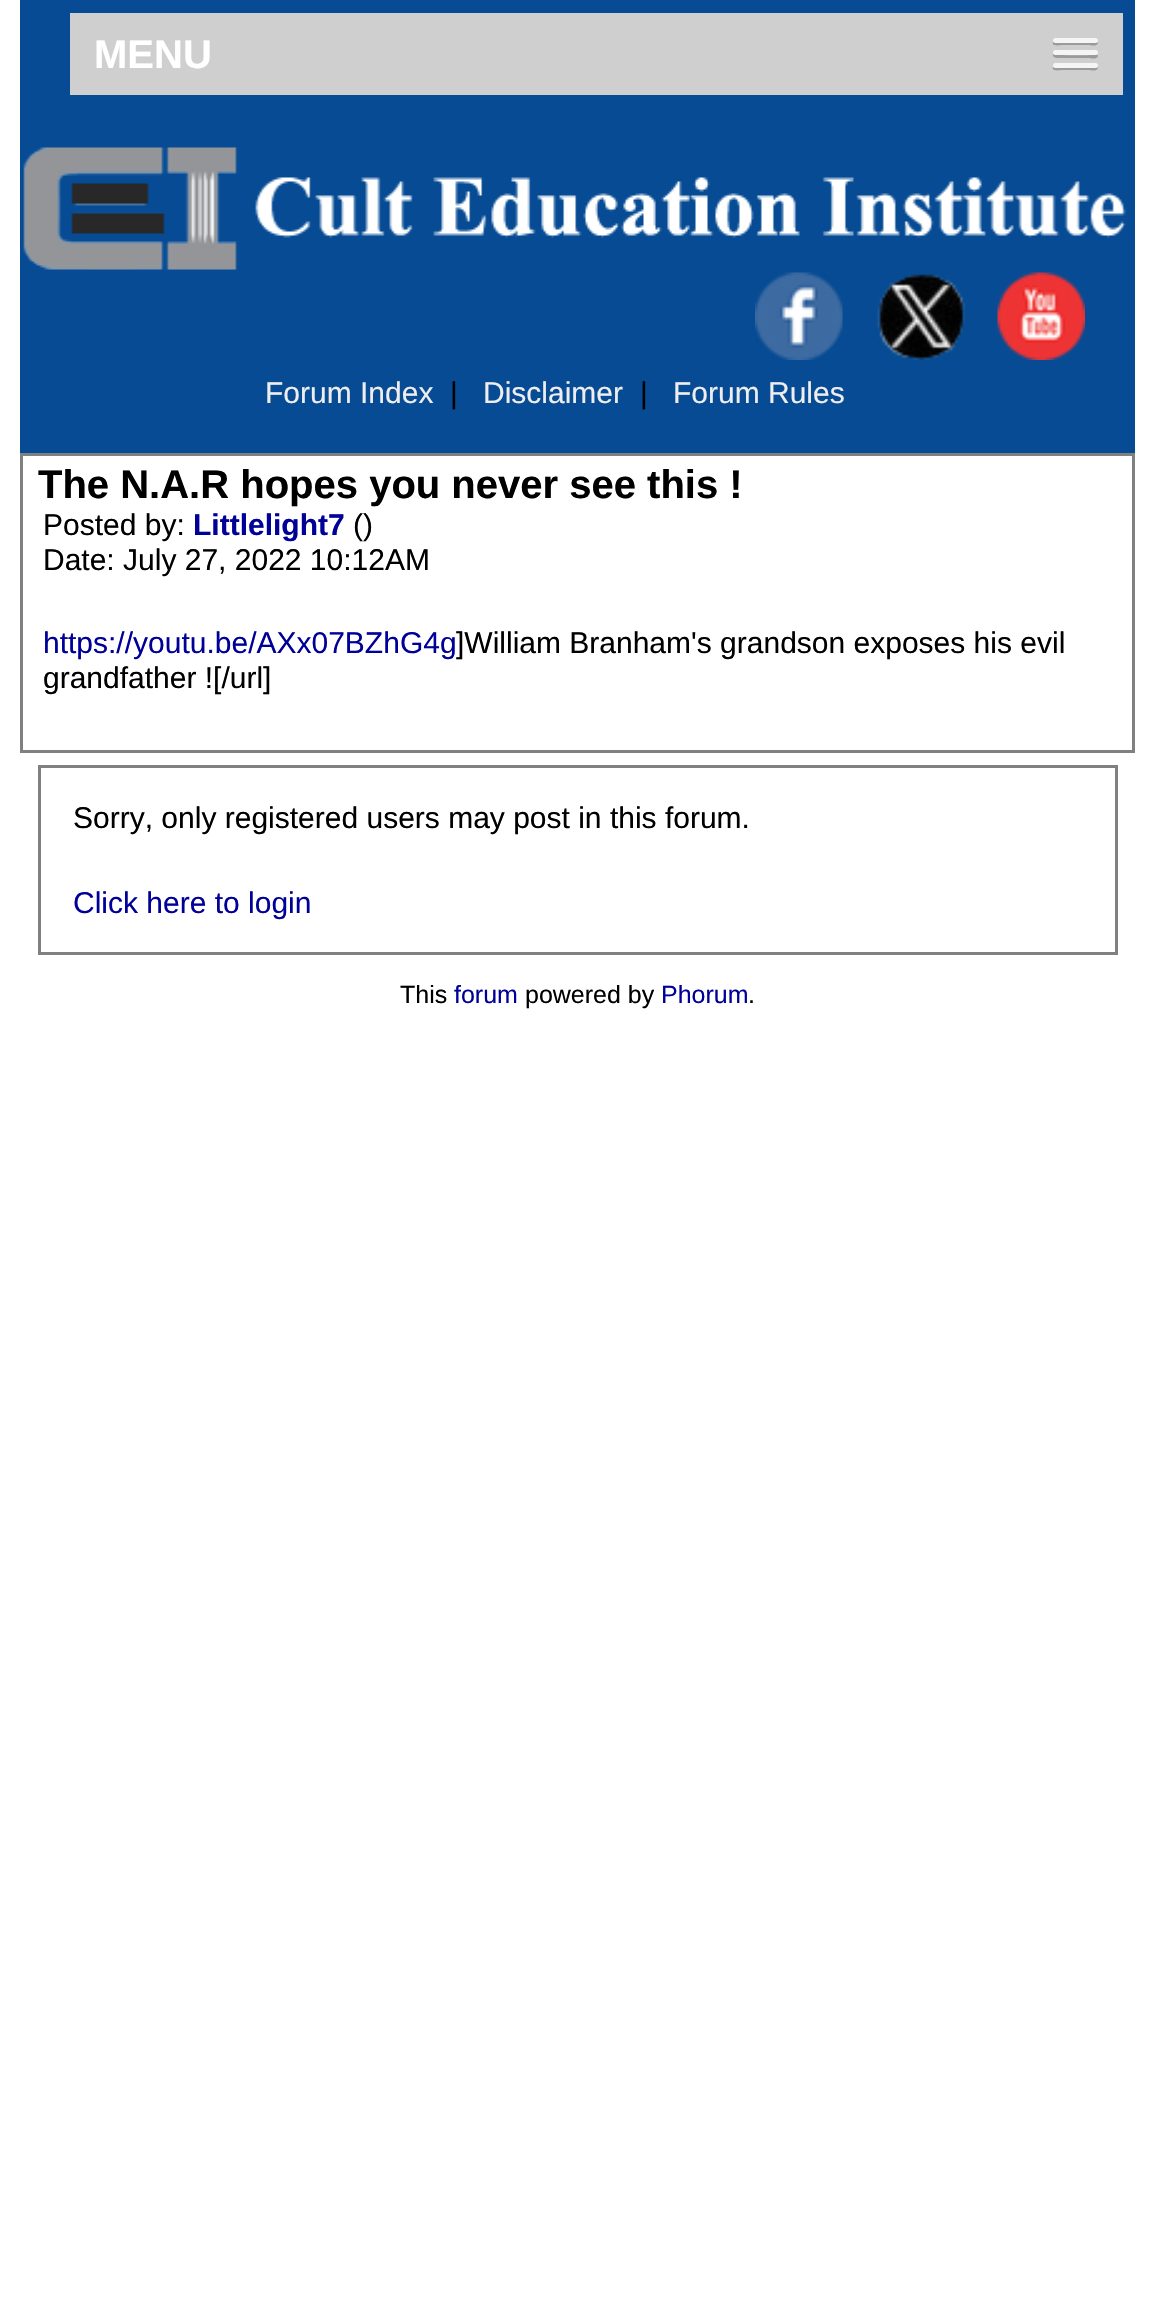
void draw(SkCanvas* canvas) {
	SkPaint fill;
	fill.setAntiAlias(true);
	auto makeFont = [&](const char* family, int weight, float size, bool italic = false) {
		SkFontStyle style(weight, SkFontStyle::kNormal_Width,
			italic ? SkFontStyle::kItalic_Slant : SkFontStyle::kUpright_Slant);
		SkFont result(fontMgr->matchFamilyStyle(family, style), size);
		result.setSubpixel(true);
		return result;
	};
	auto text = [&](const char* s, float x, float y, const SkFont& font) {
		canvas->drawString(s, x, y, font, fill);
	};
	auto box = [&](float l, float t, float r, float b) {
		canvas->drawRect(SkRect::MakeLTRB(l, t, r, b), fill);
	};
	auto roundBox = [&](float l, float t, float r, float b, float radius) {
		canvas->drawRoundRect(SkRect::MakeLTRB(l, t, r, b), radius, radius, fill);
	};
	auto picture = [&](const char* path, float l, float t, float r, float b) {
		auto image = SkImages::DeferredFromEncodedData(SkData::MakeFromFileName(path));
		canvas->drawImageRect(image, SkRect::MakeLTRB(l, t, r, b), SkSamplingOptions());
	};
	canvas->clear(0xFFFFFFFF);
	fill.setColor(0xFF064B93);
	box(20, 0, 1135, 453);
	fill.setColor(0xFFCFCFCF);
	box(70, 13, 1123, 95);
	fill.setColor(0xFF9B9B9B);
	canvas->drawPath(SkPathBuilder().moveTo(1053, 42).cubicTo(1051, 47, 1061, 45, 1062, 45).lineTo(1089, 45).cubicTo(1090, 45, 1097, 47, 1098, 43).lineTo(1097, 41).lineTo(1095, 42).lineTo(1055, 42).close().detach(), fill);
	fill.setColor(0xFFF5F5F5);
	roundBox(1053, 38, 1098, 43, 2.5f);
	fill.setColor(0xFF9B9B9B);
	canvas->drawPath(SkPathBuilder().moveTo(1053, 54).cubicTo(1051, 59, 1062, 58, 1062, 58).lineTo(1089, 58).cubicTo(1090, 58, 1097, 60, 1098, 56).lineTo(1097, 54).lineTo(1095, 55).cubicTo(1092, 55, 1055, 56, 1053, 54).close().detach(), fill);
	fill.setColor(0xFFF5F5F5);
	roundBox(1053, 50, 1098, 55, 2.5f);
	fill.setColor(0xFF9B9B9B);
	canvas->drawPath(SkPathBuilder().moveTo(1053, 67).cubicTo(1051, 72, 1061, 70, 1062, 70).lineTo(1089, 70).cubicTo(1090, 70, 1097, 72, 1098, 68).lineTo(1097, 66).lineTo(1095, 67).lineTo(1055, 67).close().detach(), fill);
	fill.setColor(0xFFF5F5F5);
	roundBox(1053, 63, 1098, 68, 2.5f);
	picture("image0.png", 23, 147, 1126, 270);
	picture("image1.png", 755, 272, 843, 360);
	picture("image2.png", 877, 274, 965, 360);
	picture("image3.png", 997, 272, 1085, 360);
	fill.setStyle(SkPaint::kStroke_Style);
	fill.setStrokeWidth(3);
	fill.setColor(0xFF808080);
	canvas->drawRect(SkRect::MakeLTRB(21.5f, 454.5f, 1133.5f, 751.5f), fill);
	canvas->drawRect(SkRect::MakeLTRB(39.5f, 766.5f, 1116.5f, 953.5f), fill);
	auto font1 = makeFont("Liberation Sans", 700, 40);
	fill.setStyle(SkPaint::kFill_Style);
	fill.setColor(0xFFFFFFFF);
	text("MENU", 94, 68, font1);
	auto font2 = makeFont("Liberation Sans", 400, 30);
	fill.setColor(0xFFEEEEEE);
	text("Forum Index", 265, 403, font2);
	fill.setColor(0xFF000000);
	text("|", 450, 403, font2);
	fill.setColor(0xFFEEEEEE);
	text("Disclaimer", 483, 403, font2);
	fill.setColor(0xFF000000);
	text("|", 640, 403, font2);
	fill.setColor(0xFFEEEEEE);
	text("Forum Rules", 673, 403, font2);
	fill.setColor(0xFF000000);
	text("The N.A.R hopes you never see this !", 38, 498, font1);
	text("Posted by:", 43, 535, font2);
	auto font3 = makeFont("Liberation Sans", 700, 30);
	fill.setColor(0xFF000099);
	text("Littlelight7", 193, 535, font3);
	fill.setColor(0xFF000000);
	text("()", 353, 535, font2);
	text("Date: July 27, 2022 10:12AM", 43, 570, font2);
	fill.setColor(0xFF000099);
	text("https://youtu.be/AXx07BZhG4g", 43, 653, font2);
	fill.setColor(0xFF000000);
	text("]William Branham's grandson exposes his evil", 456, 653, font2);
	text("grandfather ![/url]", 43, 688, font2);
	text("Sorry, only registered users may post in this forum.", 73, 828, font2);
	fill.setColor(0xFF000099);
	text("Click here to login", 73, 913, font2);
	auto font4 = makeFont("Liberation Sans", 400, 25);
	fill.setColor(0xFF000000);
	text("This", 400, 1003, font4);
	fill.setColor(0xFF000099);
	text("forum", 454, 1003, font4);
	fill.setColor(0xFF000000);
	text("powered by", 525, 1003, font4);
	fill.setColor(0xFF000099);
	text("Phorum", 661, 1003, font4);
	fill.setColor(0xFF000000);
	text(".", 748, 1003, font4);
}
